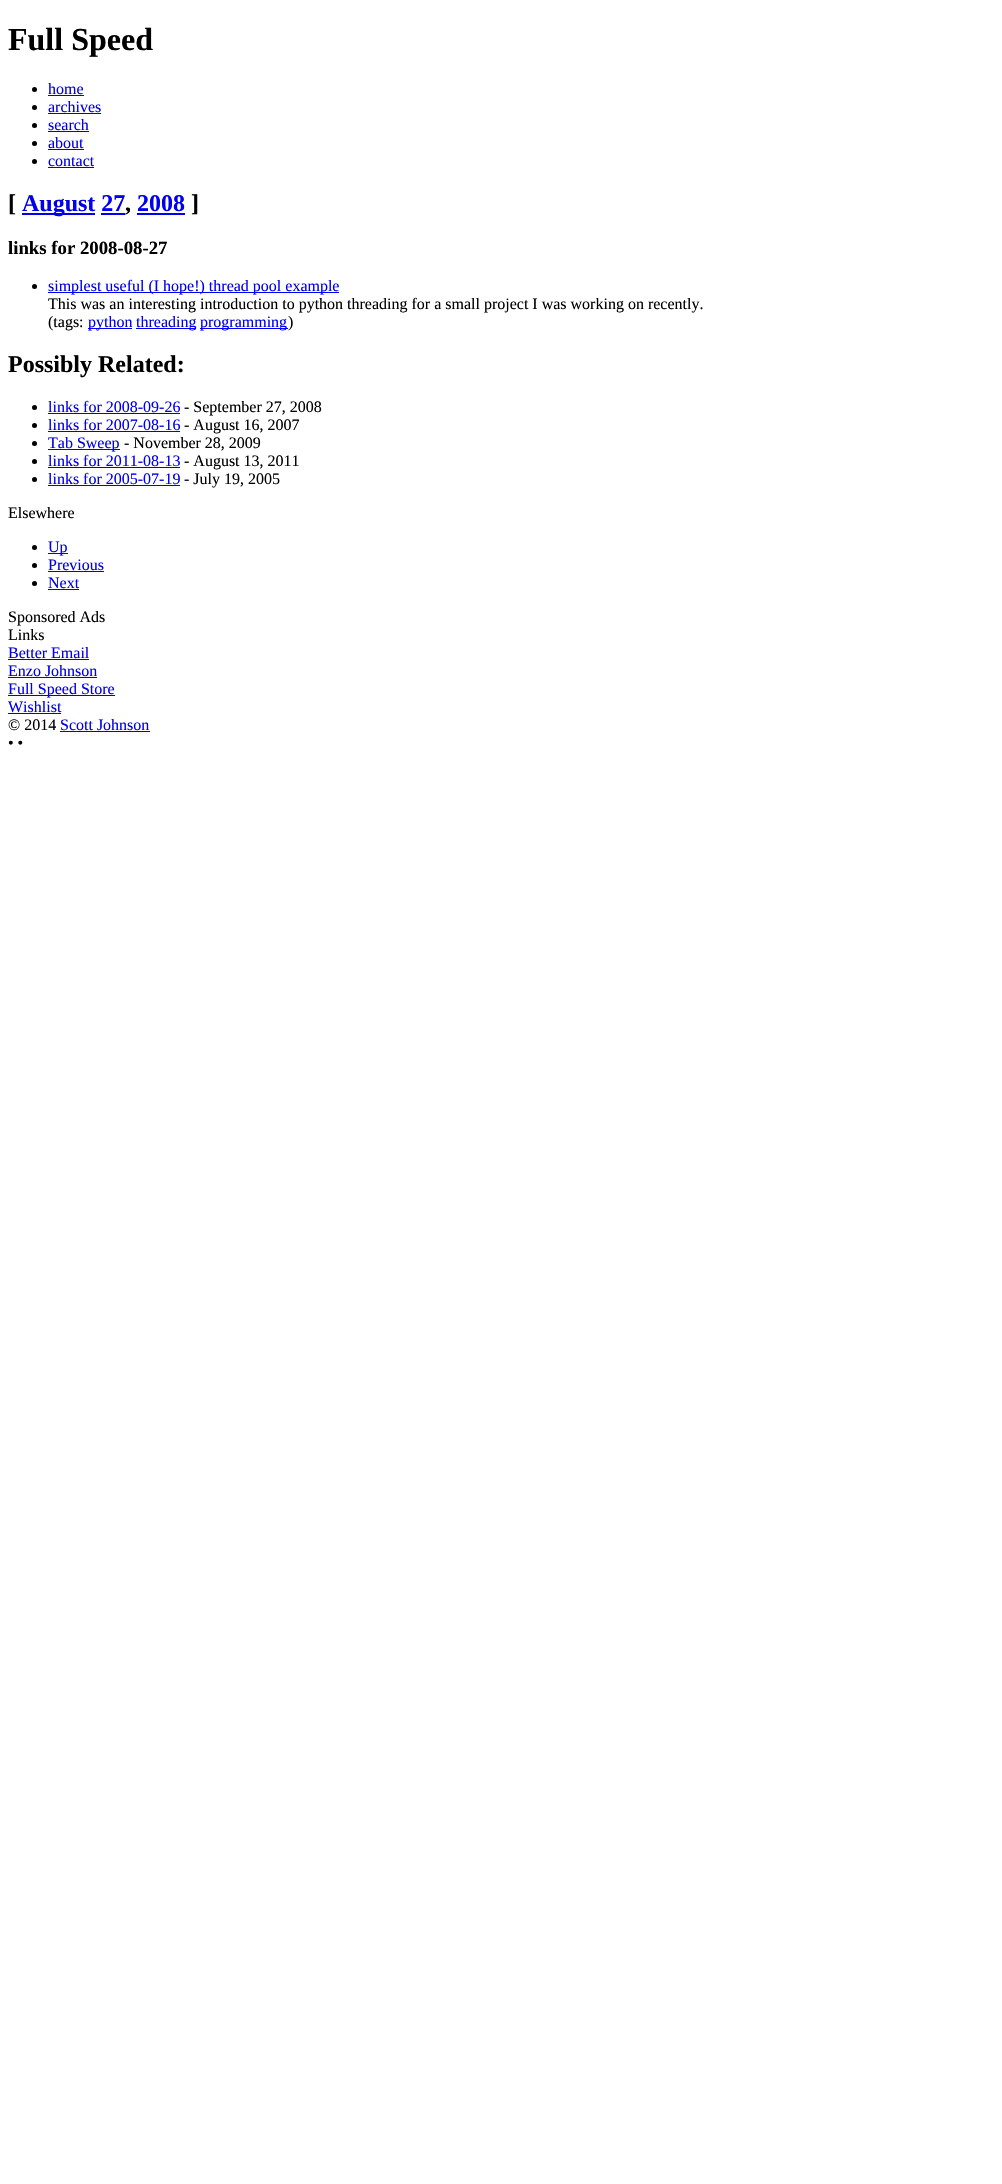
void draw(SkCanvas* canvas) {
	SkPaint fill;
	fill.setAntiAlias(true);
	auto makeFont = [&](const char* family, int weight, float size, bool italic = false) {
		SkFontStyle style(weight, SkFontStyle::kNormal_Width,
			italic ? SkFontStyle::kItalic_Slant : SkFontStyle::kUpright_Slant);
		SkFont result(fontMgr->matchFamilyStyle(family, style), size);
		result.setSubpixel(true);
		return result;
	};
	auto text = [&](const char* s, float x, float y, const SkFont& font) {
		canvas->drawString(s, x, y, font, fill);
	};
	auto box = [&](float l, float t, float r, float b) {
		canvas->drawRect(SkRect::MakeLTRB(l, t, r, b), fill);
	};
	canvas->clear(0xFFFFFFFF);
	fill.setColor(0xFF000000);
	canvas->drawCircle(34.5f, 89.5f, 2.5f, fill);
	fill.setColor(0xFF0000EE);
	box(48, 95, 84, 96);
	fill.setColor(0xFF000000);
	canvas->drawCircle(34.5f, 107.5f, 2.5f, fill);
	fill.setColor(0xFF0000EE);
	box(48, 113, 101, 114);
	fill.setColor(0xFF000000);
	canvas->drawCircle(34.5f, 125.5f, 2.5f, fill);
	fill.setColor(0xFF0000EE);
	box(48, 131, 89, 132);
	fill.setColor(0xFF000000);
	canvas->drawCircle(34.5f, 143.5f, 2.5f, fill);
	fill.setColor(0xFF0000EE);
	box(48, 149, 84, 150);
	fill.setColor(0xFF000000);
	canvas->drawCircle(34.5f, 161.5f, 2.5f, fill);
	fill.setColor(0xFF0000EE);
	box(48, 167, 94, 168);
	box(22, 213, 95, 215);
	box(137, 213, 185, 215);
	box(101, 213, 125, 215);
	fill.setColor(0xFF000000);
	canvas->drawCircle(34.5f, 286.5f, 2.5f, fill);
	fill.setColor(0xFF0000EE);
	box(48, 292, 339, 293);
	box(88, 328, 132, 329);
	box(136, 328, 196, 329);
	box(200, 328, 288, 329);
	fill.setColor(0xFF000000);
	canvas->drawCircle(34.5f, 407.5f, 2.5f, fill);
	fill.setColor(0xFF0000EE);
	box(48, 413, 180, 414);
	fill.setColor(0xFF000000);
	canvas->drawCircle(34.5f, 425.5f, 2.5f, fill);
	fill.setColor(0xFF0000EE);
	box(48, 431, 180, 432);
	fill.setColor(0xFF000000);
	canvas->drawCircle(34.5f, 443.5f, 2.5f, fill);
	fill.setColor(0xFF0000EE);
	box(48, 449, 120, 450);
	fill.setColor(0xFF000000);
	canvas->drawCircle(34.5f, 461.5f, 2.5f, fill);
	fill.setColor(0xFF0000EE);
	box(48, 467, 180, 468);
	fill.setColor(0xFF000000);
	canvas->drawCircle(34.5f, 479.5f, 2.5f, fill);
	fill.setColor(0xFF0000EE);
	box(48, 485, 180, 486);
	fill.setColor(0xFF000000);
	canvas->drawCircle(34.5f, 547.5f, 2.5f, fill);
	fill.setColor(0xFF0000EE);
	box(48, 553, 68, 554);
	fill.setColor(0xFF000000);
	canvas->drawCircle(34.5f, 565.5f, 2.5f, fill);
	fill.setColor(0xFF0000EE);
	box(48, 571, 104, 572);
	fill.setColor(0xFF000000);
	canvas->drawCircle(34.5f, 583.5f, 2.5f, fill);
	fill.setColor(0xFF0000EE);
	box(48, 589, 79, 590);
	box(8, 659, 89, 660);
	box(8, 677, 97, 678);
	box(8, 695, 115, 696);
	box(8, 713, 61, 714);
	box(60, 731, 150, 732);
	auto font1 = makeFont("Liberation Serif", 700, 32);
	fill.setColor(0xFF000000);
	text("Full Speed", 8, 50, font1);
	auto font2 = makeFont("Liberation Serif", 400, 16);
	fill.setColor(0xFF0000EE);
	text("home", 48, 94, font2);
	text("archives", 48, 112, font2);
	text("search", 48, 130, font2);
	text("about", 48, 148, font2);
	text("contact", 48, 166, font2);
	auto font3 = makeFont("Liberation Serif", 700, 24);
	fill.setColor(0xFF000000);
	text("[", 8, 211, font3);
	fill.setColor(0xFF0000EE);
	text("August 27", 22, 211, font3);
	fill.setColor(0xFF000000);
	text(",", 125, 211, font3);
	fill.setColor(0xFF0000EE);
	text("2008", 137, 211, font3);
	fill.setColor(0xFF000000);
	text("]", 191, 211, font3);
	auto font4 = makeFont("Liberation Serif", 700, 18.75f);
	text("links for 2008-08-27", 8, 254, font4);
	fill.setColor(0xFF0000EE);
	text("simplest useful (I hope!) thread pool example", 48, 291, font2);
	fill.setColor(0xFF000000);
	text("This was an interesting introduction to python threading for a small project I was working on recently.", 48, 309, font2);
	text("(tags:", 48, 327, font2);
	fill.setColor(0xFF0000EE);
	text("python", 88, 327, font2);
	text("threading", 136, 327, font2);
	text("programming", 200, 327, font2);
	fill.setColor(0xFF000000);
	text(")", 288, 327, font2);
	text("Possibly Related:", 8, 372, font3);
	fill.setColor(0xFF0000EE);
	text("links for 2008-09-26", 48, 412, font2);
	fill.setColor(0xFF000000);
	text("- September 27, 2008", 184, 412, font2);
	fill.setColor(0xFF0000EE);
	text("links for 2007-08-16", 48, 430, font2);
	fill.setColor(0xFF000000);
	text("- August 16, 2007", 184, 430, font2);
	fill.setColor(0xFF0000EE);
	text("Tab Sweep", 48, 448, font2);
	fill.setColor(0xFF000000);
	text("- November 28, 2009", 124, 448, font2);
	fill.setColor(0xFF0000EE);
	text("links for 2011-08-13", 48, 466, font2);
	fill.setColor(0xFF000000);
	text("- August 13, 2011", 184, 466, font2);
	fill.setColor(0xFF0000EE);
	text("links for 2005-07-19", 48, 484, font2);
	fill.setColor(0xFF000000);
	text("- July 19, 2005", 184, 484, font2);
	text("Elsewhere", 8, 518, font2);
	fill.setColor(0xFF0000EE);
	text("Up", 48, 552, font2);
	text("Previous", 48, 570, font2);
	text("Next", 48, 588, font2);
	fill.setColor(0xFF000000);
	text("Sponsored Ads", 8, 622, font2);
	text("Links", 8, 640, font2);
	fill.setColor(0xFF0000EE);
	text("Better Email", 8, 658, font2);
	text("Enzo Johnson", 8, 676, font2);
	text("Full Speed Store", 8, 694, font2);
	text("Wishlist", 8, 712, font2);
	fill.setColor(0xFF000000);
	text("© 2014", 8, 730, font2);
	fill.setColor(0xFF0000EE);
	text("Scott Johnson", 60, 730, font2);
	fill.setColor(0xFF000000);
	text("• •", 8, 748, font2);
}
